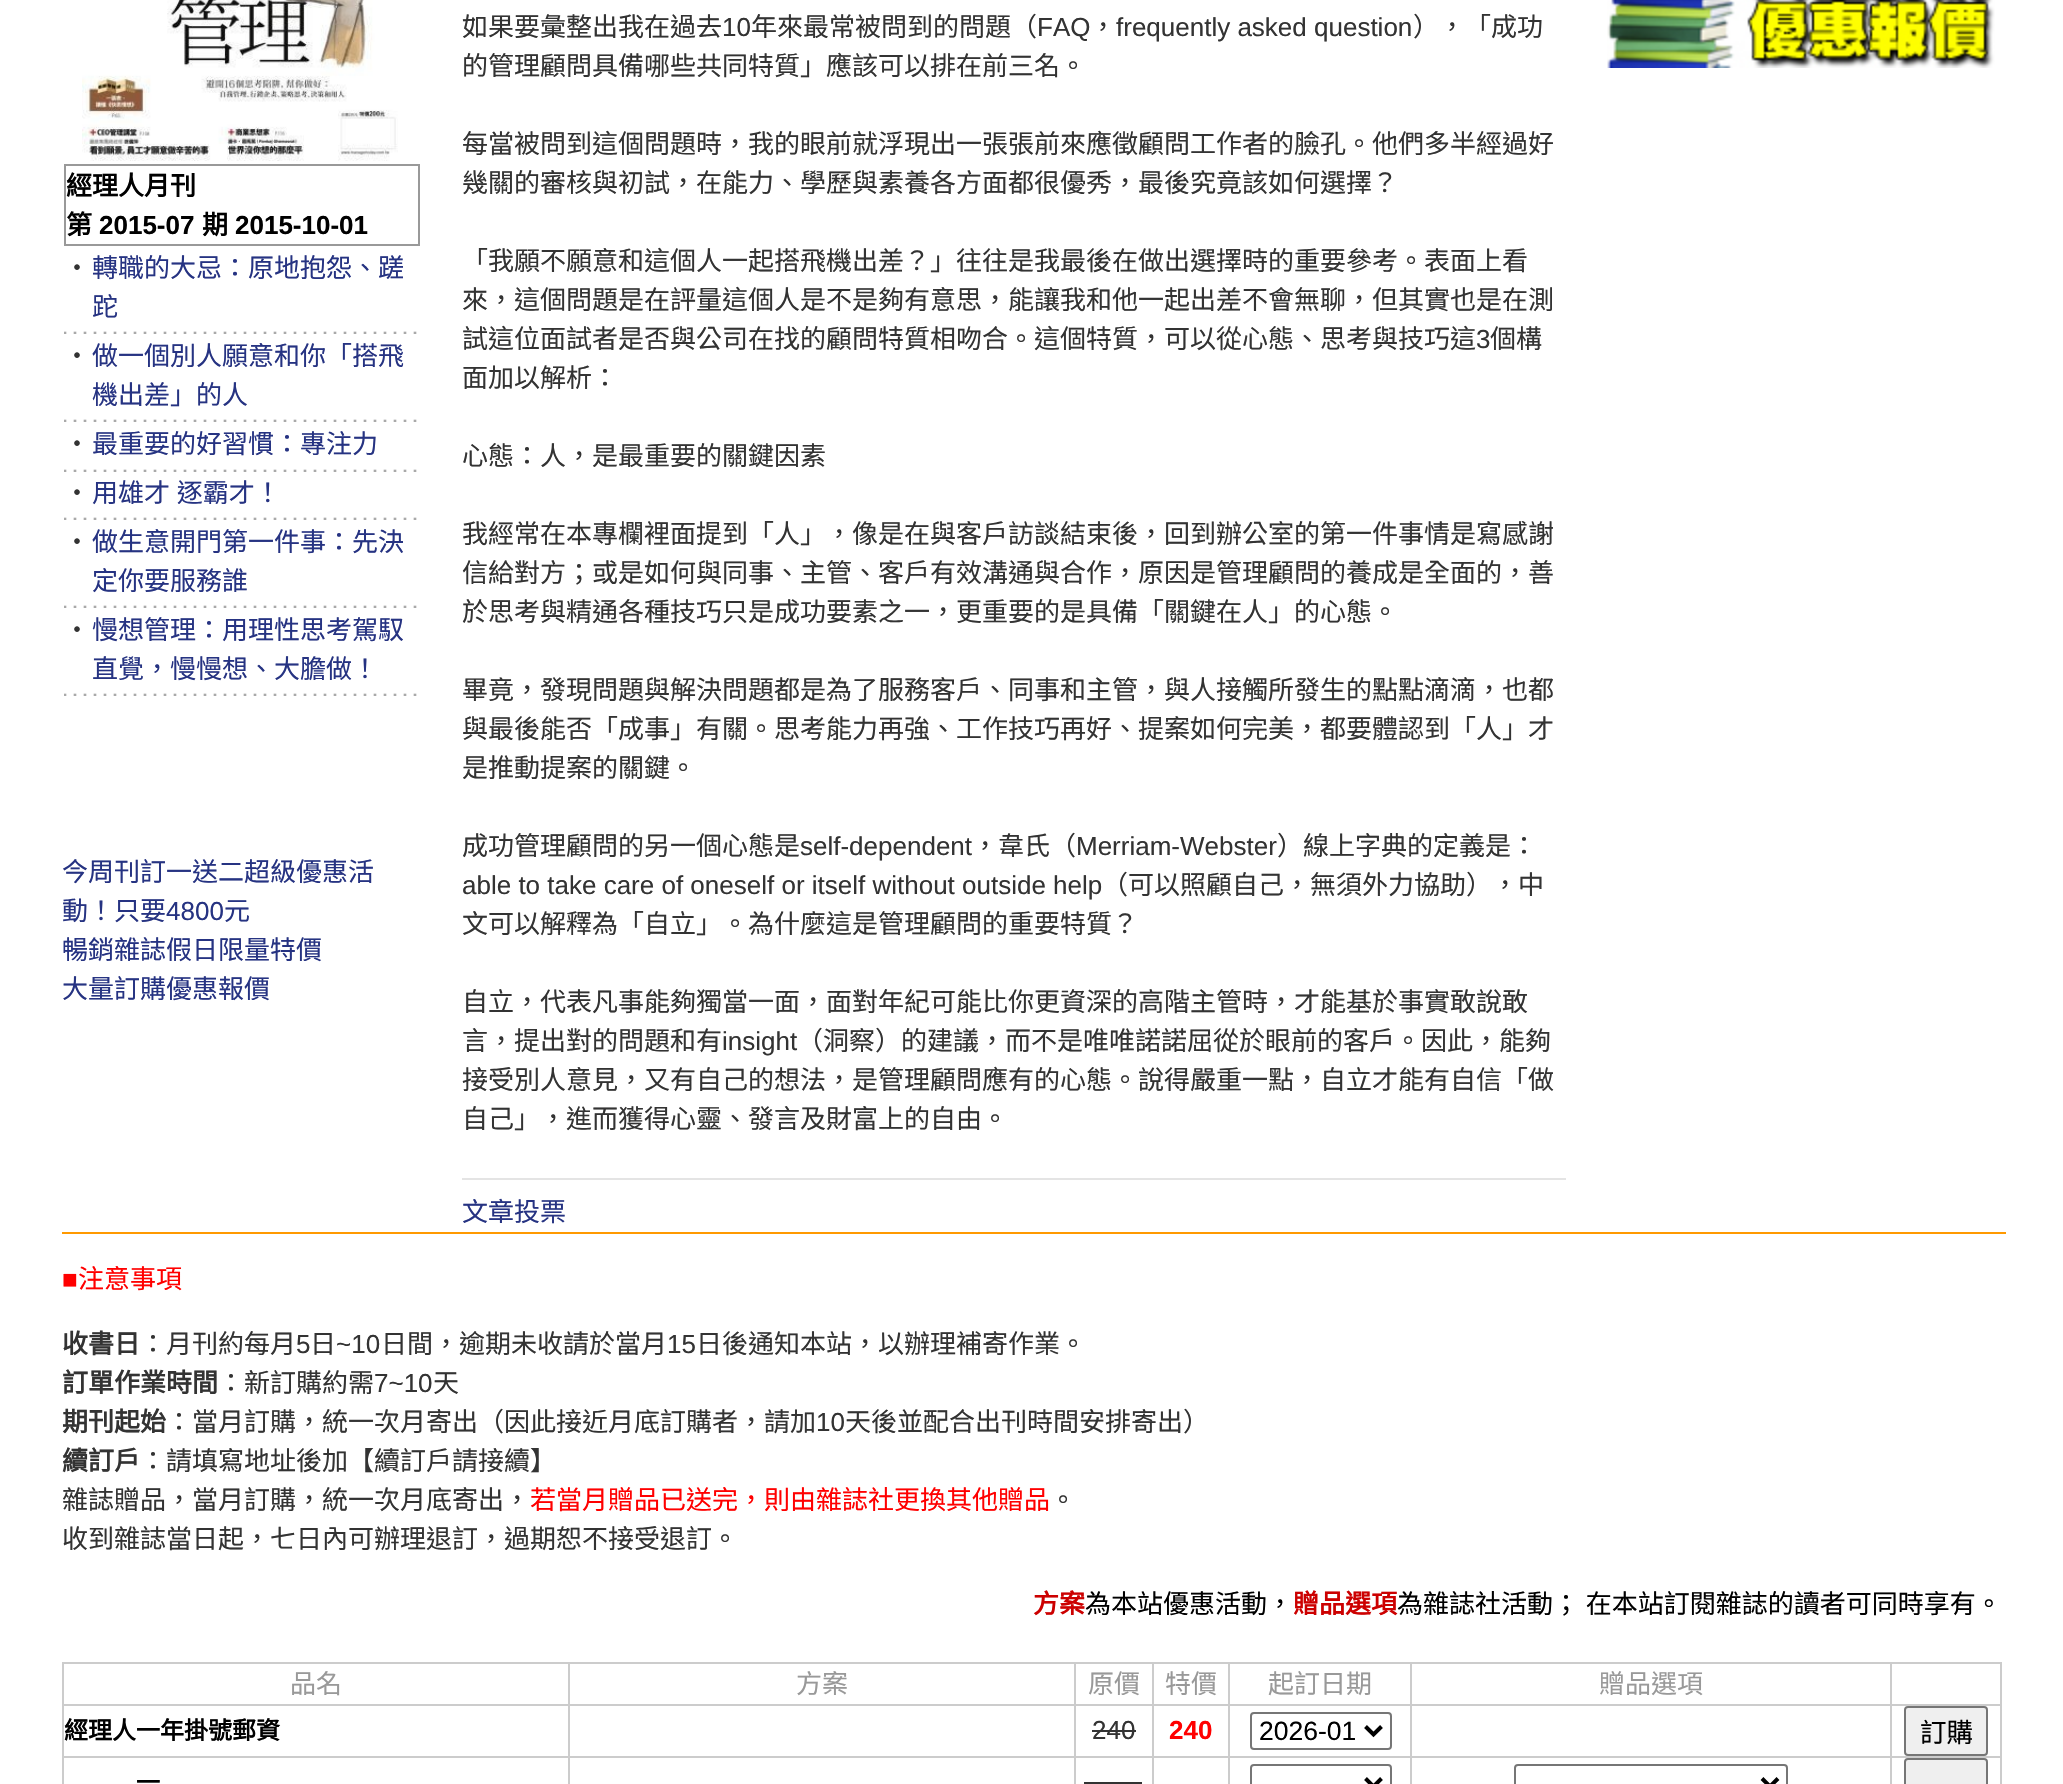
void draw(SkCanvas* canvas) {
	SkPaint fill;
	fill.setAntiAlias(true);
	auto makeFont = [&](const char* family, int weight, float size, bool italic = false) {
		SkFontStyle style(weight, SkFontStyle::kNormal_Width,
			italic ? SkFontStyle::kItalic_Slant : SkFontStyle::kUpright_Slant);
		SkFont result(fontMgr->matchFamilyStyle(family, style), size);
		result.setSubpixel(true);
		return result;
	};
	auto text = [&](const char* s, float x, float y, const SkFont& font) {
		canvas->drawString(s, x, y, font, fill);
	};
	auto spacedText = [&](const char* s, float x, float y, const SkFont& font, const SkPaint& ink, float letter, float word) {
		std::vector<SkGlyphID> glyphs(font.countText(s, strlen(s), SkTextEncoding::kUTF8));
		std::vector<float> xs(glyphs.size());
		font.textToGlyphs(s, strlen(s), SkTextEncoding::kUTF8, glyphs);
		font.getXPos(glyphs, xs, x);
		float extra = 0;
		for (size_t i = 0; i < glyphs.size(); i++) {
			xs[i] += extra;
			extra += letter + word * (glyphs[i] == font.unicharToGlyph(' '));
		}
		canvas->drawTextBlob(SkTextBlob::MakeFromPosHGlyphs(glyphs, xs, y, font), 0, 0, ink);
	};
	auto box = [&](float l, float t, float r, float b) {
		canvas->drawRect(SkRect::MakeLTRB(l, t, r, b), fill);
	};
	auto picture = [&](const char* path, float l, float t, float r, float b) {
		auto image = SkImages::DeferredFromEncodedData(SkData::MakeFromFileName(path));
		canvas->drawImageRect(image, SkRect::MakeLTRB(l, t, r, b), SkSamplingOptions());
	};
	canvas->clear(0xFFFFFFFF);
	picture("image0.png", 82, 0, 398, 161);
	fill.setStyle(SkPaint::kStroke_Style);
	fill.setStrokeWidth(2);
	fill.setColor(0xFF999999);
	canvas->drawRect(SkRect::MakeLTRB(65, 165, 419, 245), fill);
	picture("image1.png", 64, 331, 417, 334);
	picture("image1.png", 64, 419, 417, 422);
	picture("image1.png", 64, 469, 417, 472);
	picture("image1.png", 64, 517, 417, 520);
	picture("image1.png", 64, 605, 417, 608);
	picture("image1.png", 64, 693, 417, 696);
	fill.setStyle(SkPaint::kFill_Style);
	fill.setColor(0xFFE4E4E4);
	box(462, 1178, 1566, 1180);
	picture("image2.png", 1607, 0, 1995, 68);
	fill.setColor(0xFFFF9900);
	box(62, 1232, 2006, 1234);
	fill.setColor(0xFFCCCCCC);
	box(62, 1662, 2002, 1784);
	fill.setColor(0xFFFFFFFF);
	box(64, 1664, 568, 1704);
	box(570, 1664, 1074, 1704);
	box(1076, 1664, 1152, 1704);
	box(1154, 1664, 1228, 1704);
	box(1230, 1664, 1410, 1704);
	box(1412, 1664, 1890, 1704);
	box(1892, 1664, 2000, 1704);
	box(64, 1706, 568, 1756);
	box(570, 1706, 1074, 1756);
	box(1076, 1706, 1152, 1756);
	fill.setColor(0xFF333333);
	box(1092, 1730, 1136, 1732);
	fill.setColor(0xFFFFFFFF);
	box(1154, 1706, 1228, 1756);
	box(1230, 1706, 1410, 1756);
	fill.setStyle(SkPaint::kStroke_Style);
	fill.setColor(0xFF767676);
	canvas->drawRoundRect(SkRect::MakeLTRB(1251, 1713, 1391, 1749), 3, 3, fill);
	fill.setStrokeWidth(4);
	fill.setColor(0xFF000000);
	canvas->drawPath(SkPathBuilder().moveTo(1365.5f, 1726.5f).lineTo(1373.5f, 1734.5f).lineTo(1381.5f, 1726.5f).detach(), fill);
	fill.setStyle(SkPaint::kFill_Style);
	fill.setColor(0xFFFFFFFF);
	box(1412, 1706, 1890, 1756);
	box(1892, 1706, 2000, 1756);
	fill.setColor(0xFFEFEFEF);
	canvas->drawRoundRect(SkRect::MakeLTRB(1905, 1707, 1987, 1755), 3, 3, fill);
	fill.setStyle(SkPaint::kStroke_Style);
	fill.setStrokeWidth(2);
	fill.setColor(0xFF767676);
	canvas->drawRoundRect(SkRect::MakeLTRB(1905, 1707, 1987, 1755), 3, 3, fill);
	fill.setStyle(SkPaint::kFill_Style);
	fill.setColor(0xFFFFFFFF);
	box(64, 1758, 568, 1784);
	box(570, 1758, 1074, 1784);
	box(1076, 1758, 1152, 1784);
	fill.setColor(0xFF333333);
	box(1084, 1782, 1142, 1784);
	fill.setColor(0xFFFFFFFF);
	box(1154, 1758, 1228, 1784);
	box(1230, 1758, 1410, 1784);
	fill.setStyle(SkPaint::kStroke_Style);
	fill.setColor(0xFF767676);
	canvas->drawRoundRect(SkRect::MakeLTRB(1251, 1765, 1391, 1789), 3, 3, fill);
	fill.setStrokeWidth(4);
	fill.setColor(0xFF000000);
	canvas->drawPath(SkPathBuilder().moveTo(1365.5f, 1778.5f).lineTo(1373.5f, 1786.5f).lineTo(1381.5f, 1778.5f).detach(), fill);
	fill.setStyle(SkPaint::kFill_Style);
	fill.setColor(0xFFFFFFFF);
	box(1412, 1758, 1890, 1784);
	fill.setStyle(SkPaint::kStroke_Style);
	fill.setStrokeWidth(2);
	fill.setColor(0xFF767676);
	canvas->drawRoundRect(SkRect::MakeLTRB(1515, 1765, 1787, 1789), 3, 3, fill);
	fill.setStrokeWidth(4);
	fill.setColor(0xFF000000);
	canvas->drawPath(SkPathBuilder().moveTo(1762, 1778.5f).lineTo(1770, 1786.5f).lineTo(1778, 1778.5f).detach(), fill);
	fill.setStyle(SkPaint::kFill_Style);
	fill.setColor(0xFFFFFFFF);
	box(1892, 1758, 2000, 1784);
	fill.setColor(0xFFEFEFEF);
	canvas->drawRoundRect(SkRect::MakeLTRB(1905, 1759, 1987, 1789), 3, 3, fill);
	fill.setStyle(SkPaint::kStroke_Style);
	fill.setStrokeWidth(2);
	fill.setColor(0xFF767676);
	canvas->drawRoundRect(SkRect::MakeLTRB(1905, 1759, 1987, 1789), 3, 3, fill);
	auto font1 = makeFont("Noto Sans CJK TC", 700, 26);
	fill.setStyle(SkPaint::kFill_Style);
	fill.setColor(0xFF000000);
	text("經理人月刊", 66, 195, font1);
	text("第", 66, 234, font1);
	auto font2 = makeFont("Liberation Sans", 700, 26);
	text("2015-07", 99, 234, font2);
	text("期", 202, 234, font1);
	text("2015-10-01", 235, 234, font2);
	auto font3 = makeFont("Noto Sans CJK TC", 400, 26);
	fill.setColor(0xFF333333);
	text("‧", 64, 277, font3);
	fill.setColor(0xFF263382);
	text("轉職的大忌：原地抱怨、蹉", 92, 277, font3);
	text("跎", 92, 316, font3);
	fill.setColor(0xFF333333);
	text("‧", 64, 365, font3);
	fill.setColor(0xFF263382);
	text("做一個別人願意和你「搭飛", 92, 365, font3);
	text("機出差」的人", 92, 404, font3);
	fill.setColor(0xFF333333);
	text("‧", 64, 453, font3);
	fill.setColor(0xFF263382);
	text("最重要的好習慣：專注力", 92, 453, font3);
	fill.setColor(0xFF333333);
	text("‧", 64, 502, font3);
	fill.setColor(0xFF263382);
	spacedText("用雄才 逐霸才！", 92, 502, font3, fill, 0, 1);
	fill.setColor(0xFF333333);
	text("‧", 64, 551, font3);
	fill.setColor(0xFF263382);
	text("做生意開門第一件事：先決", 92, 551, font3);
	text("定你要服務誰", 92, 590, font3);
	fill.setColor(0xFF333333);
	text("‧", 64, 639, font3);
	fill.setColor(0xFF263382);
	text("慢想管理：用理性思考駕馭", 92, 639, font3);
	text("直覺，慢慢想、大膽做！", 92, 678, font3);
	text("今周刊訂一送二超級優惠活", 62, 881, font3);
	text("動！只要", 62, 920, font3);
	auto font4 = makeFont("Liberation Sans", 400, 26);
	text("4800", 166, 920, font4);
	text("元", 224, 920, font3);
	text("暢銷雜誌假日限量特價", 62, 959, font3);
	text("大量訂購優惠報價", 62, 998, font3);
	fill.setColor(0xFF333333);
	text("如果要彙整出我在過去", 462, 36, font3);
	text("10", 722, 36, font4);
	text("年來最常被問到的問題（", 751, 36, font3);
	text("FAQ", 1037, 36, font4);
	text("，", 1090, 36, font3);
	text("frequently asked question", 1116, 36, font4);
	text("），「成功", 1413, 36, font3);
	text("的管理顧問具備哪些共同特質」應該可以排在前三名。", 462, 75, font3);
	text("每當被問到這個問題時，我的眼前就浮現出一張張前來應徵顧問工作者的臉孔。他們多半經過好", 462, 153, font3);
	text("幾關的審核與初試，在能力、學歷與素養各方面都很優秀，最後究竟該如何選擇？", 462, 192, font3);
	text("「我願不願意和這個人一起搭飛機出差？」往往是我最後在做出選擇時的重要參考。表面上看", 462, 270, font3);
	text("來，這個問題是在評量這個人是不是夠有意思，能讓我和他一起出差不會無聊，但其實也是在測", 462, 309, font3);
	text("試這位面試者是否與公司在找的顧問特質相吻合。這個特質，可以從心態、思考與技巧這", 462, 348, font3);
	text("3", 1476, 348, font4);
	text("個構", 1490, 348, font3);
	text("面加以解析：", 462, 387, font3);
	text("心態：人，是最重要的關鍵因素", 462, 465, font3);
	text("我經常在本專欄裡面提到「人」，像是在與客戶訪談結束後，回到辦公室的第一件事情是寫感謝", 462, 543, font3);
	text("信給對方；或是如何與同事、主管、客戶有效溝通與合作，原因是管理顧問的養成是全面的，善", 462, 582, font3);
	text("於思考與精通各種技巧只是成功要素之一，更重要的是具備「關鍵在人」的心態。", 462, 621, font3);
	text("畢竟，發現問題與解決問題都是為了服務客戶、同事和主管，與人接觸所發生的點點滴滴，也都", 462, 699, font3);
	text("與最後能否「成事」有關。思考能力再強、工作技巧再好、提案如何完美，都要體認到「人」才", 462, 738, font3);
	text("是推動提案的關鍵。", 462, 777, font3);
	text("成功管理顧問的另一個心態是", 462, 855, font3);
	text("self-dependent", 800, 855, font4);
	text("，韋氏（", 972, 855, font3);
	text("Merriam-Webster", 1076, 855, font4);
	text("）線上字典的定義是：", 1277, 855, font3);
	text("able to take care of oneself or itself without outside help", 462, 894, font4);
	text("（可以照顧自己，無須外力協助），中", 1102, 894, font3);
	text("文可以解釋為「自立」。為什麼這是管理顧問的重要特質？", 462, 933, font3);
	text("自立，代表凡事能夠獨當一面，面對年紀可能比你更資深的高階主管時，才能基於事實敢說敢", 462, 1011, font3);
	text("言，提出對的問題和有", 462, 1050, font3);
	text("insight", 722, 1050, font4);
	text("（洞察）的建議，而不是唯唯諾諾屈從於眼前的客戶。因此，能夠", 797, 1050, font3);
	text("接受別人意見，又有自己的想法，是管理顧問應有的心態。說得嚴重一點，自立才能有自信「做", 462, 1089, font3);
	text("自己」，進而獲得心靈、發言及財富上的自由。", 462, 1128, font3);
	fill.setColor(0xFF263382);
	text("文章投票", 462, 1221, font3);
	fill.setColor(0xFFFF0000);
	text("■", 62, 1288, font4);
	text("注意事項", 78, 1288, font3);
	fill.setColor(0xFF333333);
	text("收書日", 62, 1353, font1);
	text("：月刊約每月", 140, 1353, font3);
	text("5", 296, 1353, font4);
	text("日", 310, 1353, font3);
	text("~10", 336, 1353, font4);
	text("日間，逾期未收請於當月", 381, 1353, font3);
	text("15", 667, 1353, font4);
	text("日後通知本站，以辦理補寄作業。", 696, 1353, font3);
	text("訂單作業時間", 62, 1392, font1);
	text("：新訂購約需", 218, 1392, font3);
	text("7~10", 374, 1392, font4);
	text("天", 433, 1392, font3);
	text("期刊起始", 62, 1431, font1);
	text("：當月訂購，統一次月寄出（因此接近月底訂購者，請加", 166, 1431, font3);
	text("10", 816, 1431, font4);
	text("天後並配合出刊時間安排寄出）", 845, 1431, font3);
	text("續訂戶", 62, 1470, font1);
	text("：請填寫地址後加【續訂戶請接續】", 140, 1470, font3);
	text("雜誌贈品，當月訂購，統一次月底寄出，", 62, 1509, font3);
	fill.setColor(0xFFFF0000);
	text("若當月贈品已送完，則由雜誌社更換其他贈品", 530, 1509, font3);
	fill.setColor(0xFF333333);
	text("。", 1050, 1509, font3);
	text("收到雜誌當日起，七日內可辦理退訂，過期恕不接受退訂。", 62, 1548, font3);
	fill.setColor(0xFFCC0000);
	text("方案", 1033, 1613, font1);
	fill.setColor(0xFF000000);
	text("為本站優惠活動，", 1085, 1613, font3);
	fill.setColor(0xFFCC0000);
	text("贈品選項", 1293, 1613, font1);
	fill.setColor(0xFF000000);
	spacedText("為雜誌社活動； 在本站訂閱雜誌的讀者可同時享有。", 1397, 1613, font3, fill, 0, 1);
	fill.setColor(0xFF999999);
	text("品名", 290, 1693, font3);
	text("方案", 796, 1693, font3);
	text("原價", 1088, 1693, font3);
	text("特價", 1165, 1693, font3);
	text("起訂日期", 1268, 1693, font3);
	text("贈品選項", 1599, 1693, font3);
	auto font5 = makeFont("Noto Sans CJK TC", 700, 24);
	fill.setColor(0xFF000000);
	text("經理人一年掛號郵資", 64, 1739, font5);
	fill.setColor(0xFF333333);
	text("240", 1092, 1739, font4);
	fill.setColor(0xFFFF0000);
	text("240", 1169, 1739, font2);
	auto font6 = makeFont("Liberation Sans", 400, 26.5f);
	fill.setColor(0xFF000000);
	text("2026-01", 1259, 1740, font6);
	auto font7 = makeFont("Noto Sans CJK TC", 400, 26.5f);
	text("訂購", 1920, 1742, font7);
	text("一", 136, 1791, font5);
}
